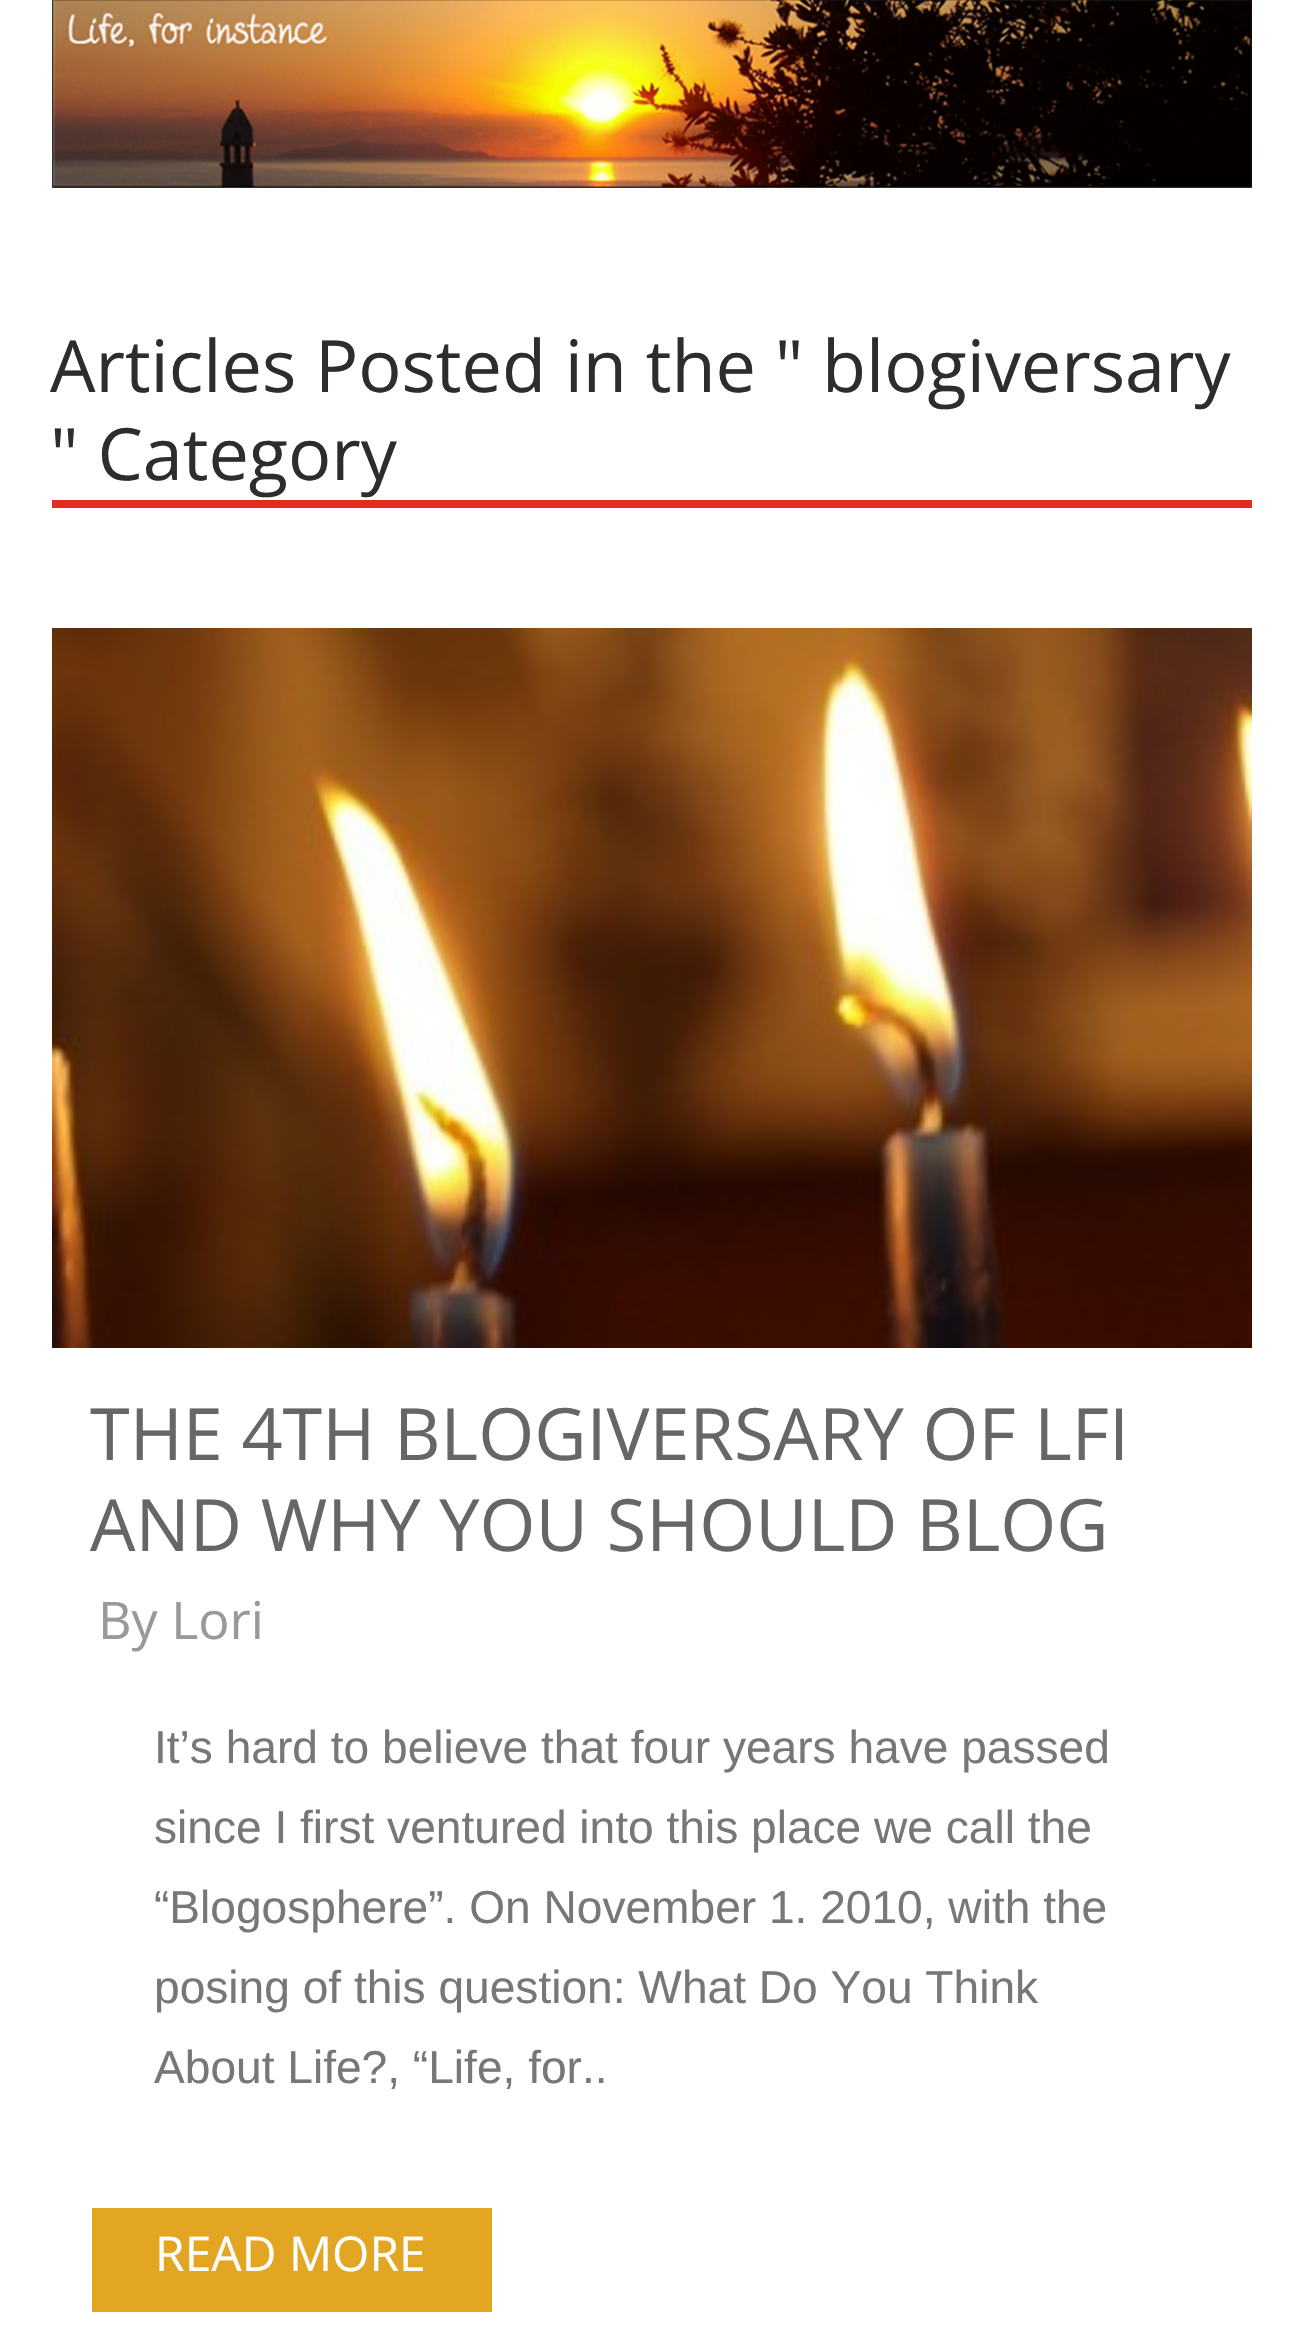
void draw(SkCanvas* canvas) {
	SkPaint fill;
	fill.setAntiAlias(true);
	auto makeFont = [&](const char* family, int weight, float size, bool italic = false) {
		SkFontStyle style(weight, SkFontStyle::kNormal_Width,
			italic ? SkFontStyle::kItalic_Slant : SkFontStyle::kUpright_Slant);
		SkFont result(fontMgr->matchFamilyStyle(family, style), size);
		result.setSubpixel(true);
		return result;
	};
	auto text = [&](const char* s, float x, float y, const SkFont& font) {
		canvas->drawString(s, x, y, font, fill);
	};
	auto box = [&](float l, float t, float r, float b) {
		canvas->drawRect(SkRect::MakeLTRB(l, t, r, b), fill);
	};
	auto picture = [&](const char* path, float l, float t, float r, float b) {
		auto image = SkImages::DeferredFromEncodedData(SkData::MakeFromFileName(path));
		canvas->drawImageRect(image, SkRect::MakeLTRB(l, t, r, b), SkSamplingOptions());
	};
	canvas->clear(0xFFFFFFFF);
	picture("image0.png", 52, 0, 1252, 188);
	fill.setColor(0xFFE32B23);
	box(52, 500, 1252, 508);
	picture("image1.png", 52, 628, 1252, 1348);
	fill.setColor(0xFFE3A622);
	box(92, 2208, 492, 2312);
	auto font1 = makeFont("Open Sans", 400, 72);
	fill.setColor(0xFF2E2D2D);
	text("Articles Posted in the \" blogiversary", 50, 392, font1);
	text("\" Category", 50, 480, font1);
	fill.setColor(0xFF666666);
	text("THE 4TH BLOGIVERSARY OF LFI", 90, 1460, font1);
	text("AND WHY YOU SHOULD BLOG", 90, 1551, font1);
	auto font2 = makeFont("Open Sans", 400, 52);
	fill.setColor(0xFF999999);
	text("By Lori", 98, 1639, font2);
	auto font3 = makeFont("Liberation Sans", 400, 46.1f);
	fill.setColor(0xFF777777);
	text("It’s hard to believe that four years have passed", 154, 1763, font3);
	text("since I first ventured into this place we call the", 154, 1843, font3);
	text("“Blogosphere”. On November 1. 2010, with the", 154, 1923, font3);
	text("posing of this question: What Do You Think", 154, 2003, font3);
	text("About Life?, “Life, for..", 154, 2083, font3);
	auto font4 = makeFont("Open Sans", 400, 48);
	fill.setColor(0xFFFFFFFF);
	text("READ MORE", 155, 2271, font4);
}
